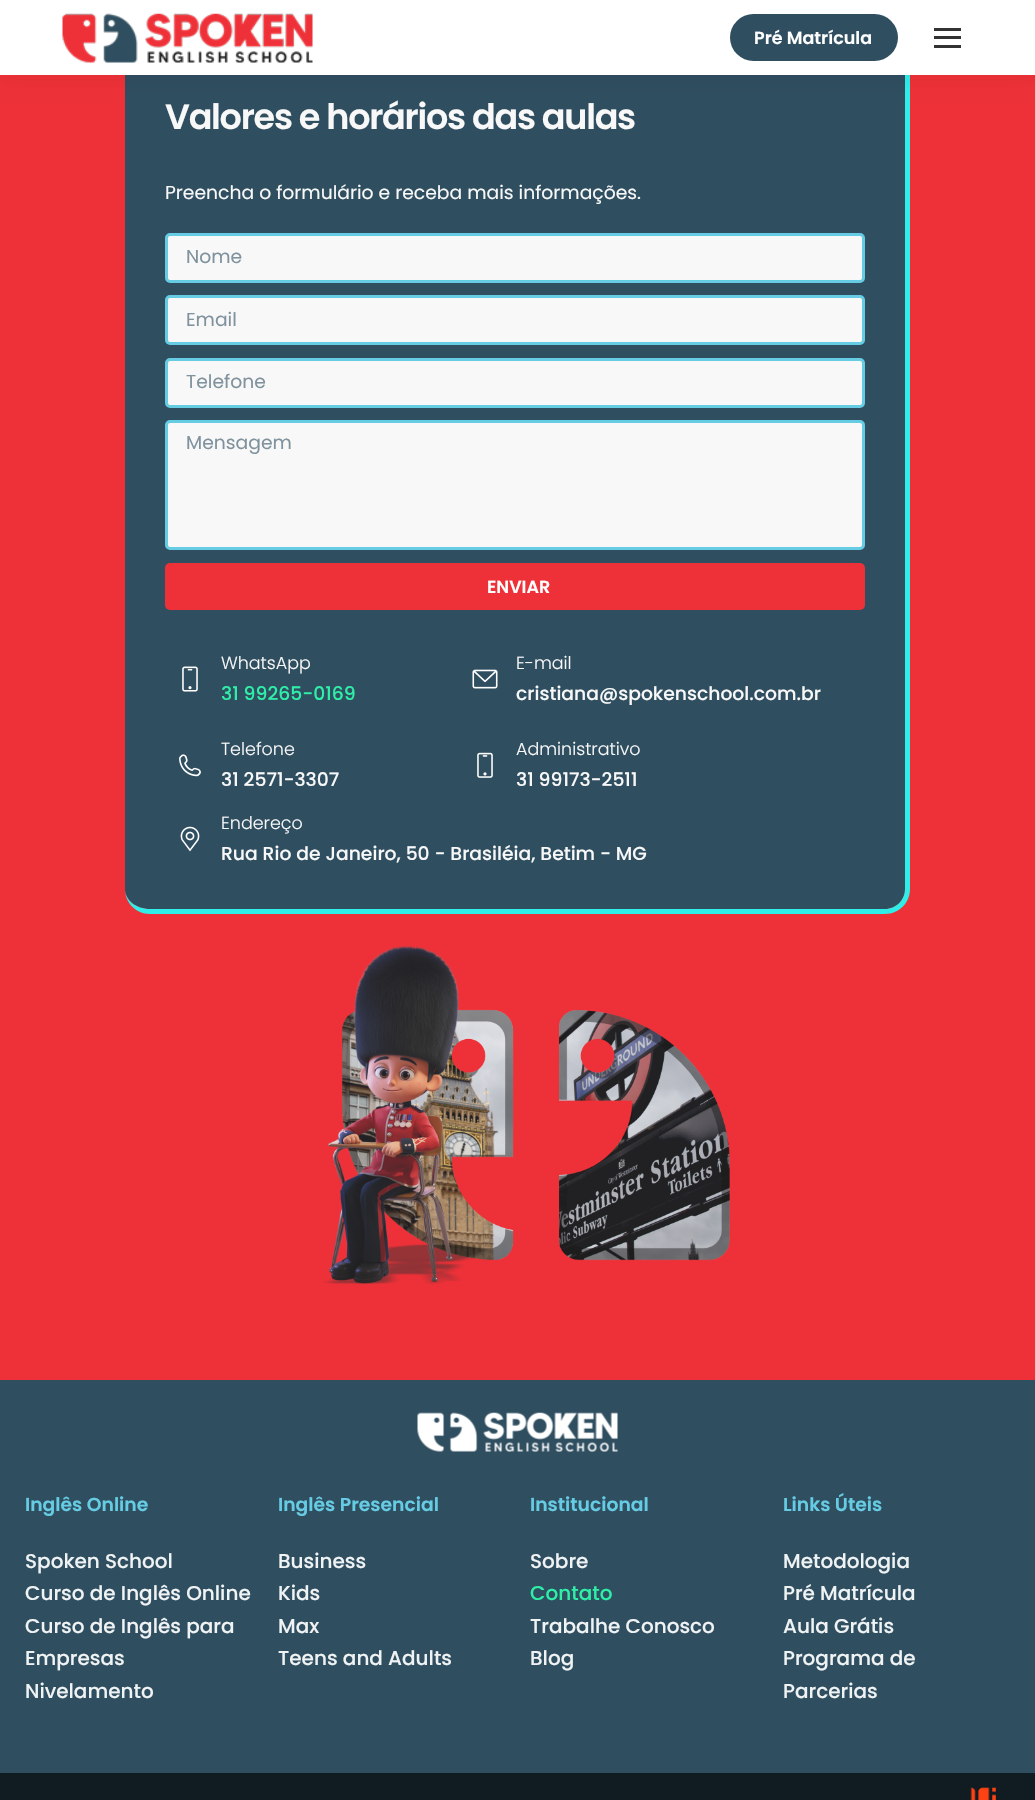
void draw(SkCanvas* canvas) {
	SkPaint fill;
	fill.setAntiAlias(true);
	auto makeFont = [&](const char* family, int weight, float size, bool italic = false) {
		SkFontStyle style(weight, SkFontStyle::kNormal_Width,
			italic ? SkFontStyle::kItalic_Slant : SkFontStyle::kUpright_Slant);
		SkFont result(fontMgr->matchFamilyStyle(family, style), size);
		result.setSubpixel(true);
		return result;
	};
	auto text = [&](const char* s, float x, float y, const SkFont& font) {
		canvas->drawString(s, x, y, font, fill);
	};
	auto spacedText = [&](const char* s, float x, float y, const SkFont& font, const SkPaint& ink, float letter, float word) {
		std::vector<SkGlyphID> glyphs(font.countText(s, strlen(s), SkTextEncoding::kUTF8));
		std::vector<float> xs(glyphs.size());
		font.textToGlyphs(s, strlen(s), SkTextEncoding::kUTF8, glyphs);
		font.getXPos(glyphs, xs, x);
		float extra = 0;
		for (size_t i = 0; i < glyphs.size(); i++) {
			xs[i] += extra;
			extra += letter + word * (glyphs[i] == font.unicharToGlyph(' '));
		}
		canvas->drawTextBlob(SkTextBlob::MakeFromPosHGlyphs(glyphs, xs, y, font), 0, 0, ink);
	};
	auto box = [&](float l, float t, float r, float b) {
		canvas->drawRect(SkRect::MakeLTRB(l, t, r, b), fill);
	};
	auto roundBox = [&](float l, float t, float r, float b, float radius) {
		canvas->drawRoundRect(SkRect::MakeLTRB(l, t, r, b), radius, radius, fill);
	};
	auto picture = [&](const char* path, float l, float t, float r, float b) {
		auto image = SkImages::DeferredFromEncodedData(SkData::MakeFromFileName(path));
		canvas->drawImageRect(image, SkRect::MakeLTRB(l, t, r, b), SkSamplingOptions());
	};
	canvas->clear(0xFFEE3138);
	fill.setColor(0xFF2F4E60);
	canvas->drawPath(SkPathBuilder().moveTo(150, 44).lineTo(885, 44).cubicTo(896, 44, 905, 55, 905, 69).lineTo(905, 889).cubicTo(905, 900, 896, 909, 885, 909).lineTo(150, 909).cubicTo(136, 909, 125, 900, 125, 889).lineTo(125, 69).cubicTo(125, 55, 136, 44, 150, 44).close().detach(), fill);
	fill.setColor(0xFF2FEEE8);
	canvas->drawPath(SkPathBuilder(SkPathFillType::kEvenOdd).moveTo(150, 44).lineTo(885, 44).cubicTo(899, 44, 910, 55, 910, 69).lineTo(910, 889).cubicTo(910, 903, 899, 914, 885, 914).lineTo(150, 914).cubicTo(136, 914, 125, 903, 125, 889).lineTo(125, 69).cubicTo(125, 55, 136, 44, 150, 44).close().moveTo(150, 44).lineTo(885, 44).cubicTo(896, 44, 905, 55, 905, 69).lineTo(905, 889).cubicTo(905, 900, 896, 909, 885, 909).lineTo(150, 909).cubicTo(136, 909, 125, 900, 125, 889).lineTo(125, 69).cubicTo(125, 55, 136, 44, 150, 44).close().detach(), fill);
	fill.setColor(0x12000000);
	fill.setMaskFilter(SkMaskFilter::MakeBlur(kNormal_SkBlurStyle, 9.5f));
	canvas->drawRect(SkRect::MakeLTRB(-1, -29, 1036, 76), fill);
	fill.setMaskFilter(nullptr);
	fill.setColor(0xFFFFFFFF);
	box(0, 0, 1035, 75);
	picture("image0.png", 62, 13, 313, 63);
	fill.setColor(0xFF2F4E60);
	roundBox(730, 14, 898, 61, 23.5f);
	fill.setColor(0xFF333333);
	box(934, 28, 961, 31);
	box(934, 36, 961, 39);
	box(934, 45, 961, 48);
	fill.setColor(0xFFF8F8F8);
	canvas->drawRoundRect(SkRect::MakeLTRB(166.5f, 234.5f, 863.5f, 281.5f), 3.5f, 3.5f, fill);
	fill.setStyle(SkPaint::kStroke_Style);
	fill.setStrokeWidth(3);
	fill.setColor(0xFF66CCE3);
	canvas->drawRoundRect(SkRect::MakeLTRB(166.5f, 234.5f, 863.5f, 281.5f), 3.5f, 3.5f, fill);
	fill.setStyle(SkPaint::kFill_Style);
	fill.setColor(0xFFF8F8F8);
	canvas->drawRoundRect(SkRect::MakeLTRB(166.5f, 296.5f, 863.5f, 343.5f), 3.5f, 3.5f, fill);
	fill.setStyle(SkPaint::kStroke_Style);
	fill.setColor(0xFF66CCE3);
	canvas->drawRoundRect(SkRect::MakeLTRB(166.5f, 296.5f, 863.5f, 343.5f), 3.5f, 3.5f, fill);
	fill.setStyle(SkPaint::kFill_Style);
	fill.setColor(0xFFF8F8F8);
	canvas->drawRoundRect(SkRect::MakeLTRB(166.5f, 359.5f, 863.5f, 406.5f), 3.5f, 3.5f, fill);
	fill.setStyle(SkPaint::kStroke_Style);
	fill.setColor(0xFF66CCE3);
	canvas->drawRoundRect(SkRect::MakeLTRB(166.5f, 359.5f, 863.5f, 406.5f), 3.5f, 3.5f, fill);
	fill.setStyle(SkPaint::kFill_Style);
	fill.setColor(0xFFF8F8F8);
	canvas->drawRoundRect(SkRect::MakeLTRB(166.5f, 421.5f, 863.5f, 548.5f), 3.5f, 3.5f, fill);
	fill.setStyle(SkPaint::kStroke_Style);
	fill.setColor(0xFF66CCE3);
	canvas->drawRoundRect(SkRect::MakeLTRB(166.5f, 421.5f, 863.5f, 548.5f), 3.5f, 3.5f, fill);
	fill.setStyle(SkPaint::kFill_Style);
	fill.setColor(0xFFEE3138);
	roundBox(165, 563, 865, 610, 5);
	picture("image1.png", 182, 666, 198, 692);
	picture("image2.png", 472, 669, 498, 689);
	picture("image3.png", 179, 754, 201, 777);
	picture("image4.png", 477, 752, 493, 778);
	picture("image5.png", 180, 826, 200, 852);
	picture("image6.png", 323, 946, 730, 1285);
	fill.setColor(0xFF2F4E60);
	box(0, 1380, 1035, 1773);
	picture("image7.png", 417, 1412, 618, 1452);
	fill.setColor(0xFF111C22);
	box(0, 1773, 1035, 1800);
	picture("image8.png", 970, 1787, 996, 1800);
	auto font1 = makeFont("Poppins", 600, 17.5f);
	fill.setColor(0xFFFFFFFF);
	text("Pré Matrícula", 754, 44, font1);
	auto font2 = makeFont("Poppins", 600, 35);
	fill.setColor(0xFFF8F8F8);
	spacedText("Valores e horários das aulas", 165, 129, font2, fill, -1.25f, 0);
	auto font3 = makeFont("Poppins", 400, 18.75f);
	text("Preencha o formulário e receba mais informações.", 165, 199, font3);
	fill.setColor(0xFF7F929D);
	text("Nome", 186, 263, font3);
	text("Email", 186, 326, font3);
	text("Telefone", 186, 388, font3);
	text("Mensagem", 186, 449, font3);
	fill.setColor(0xFFFFFFFF);
	text("ENVIAR", 487, 593, font1);
	auto font4 = makeFont("Poppins", 300, 17.5f);
	fill.setColor(0xFFF8F8F8);
	text("WhatsApp", 221, 669, font4);
	auto font5 = makeFont("Poppins", 500, 18.75f);
	fill.setColor(0xFF2FEEA8);
	text("31 99265-0169", 221, 700, font5);
	fill.setColor(0xFFF8F8F8);
	text("E-mail", 516, 669, font4);
	text("cristiana@spokenschool.com.br", 516, 700, font5);
	text("Telefone", 221, 755, font4);
	text("31 2571-3307", 221, 786, font5);
	text("Administrativo", 516, 755, font4);
	text("31 99173-2511", 516, 786, font5);
	text("Endereço", 221, 829, font4);
	text("Rua Rio de Janeiro, 50 - Brasiléia, Betim - MG", 221, 860, font5);
	auto font6 = makeFont("Poppins", 600, 18.75f);
	fill.setColor(0xFF66CCE3);
	text("Inglês Online", 25, 1511, font6);
	auto font7 = makeFont("Poppins", 500, 20);
	fill.setColor(0xFFF0F3F4);
	text("Spoken School", 25, 1568, font7);
	text("Curso de Inglês Online", 25, 1600, font7);
	text("Curso de Inglês para", 25, 1633, font7);
	text("Empresas", 25, 1665, font7);
	text("Nivelamento", 25, 1698, font7);
	fill.setColor(0xFF66CCE3);
	text("Inglês Presencial", 278, 1511, font6);
	fill.setColor(0xFFF0F3F4);
	text("Business", 278, 1568, font7);
	text("Kids", 278, 1600, font7);
	text("Max", 278, 1633, font7);
	text("Teens and Adults", 278, 1665, font7);
	fill.setColor(0xFF66CCE3);
	text("Institucional", 530, 1511, font6);
	fill.setColor(0xFFF0F3F4);
	text("Sobre", 530, 1568, font7);
	fill.setColor(0xFF2FEEA8);
	text("Contato", 530, 1600, font7);
	fill.setColor(0xFFF0F3F4);
	text("Trabalhe Conosco", 530, 1633, font7);
	text("Blog", 530, 1665, font7);
	fill.setColor(0xFF66CCE3);
	text("Links Úteis", 783, 1511, font6);
	fill.setColor(0xFFF0F3F4);
	text("Metodologia", 783, 1568, font7);
	text("Pré Matrícula", 783, 1600, font7);
	text("Aula Grátis", 783, 1633, font7);
	text("Programa de", 783, 1665, font7);
	text("Parcerias", 783, 1698, font7);
}
